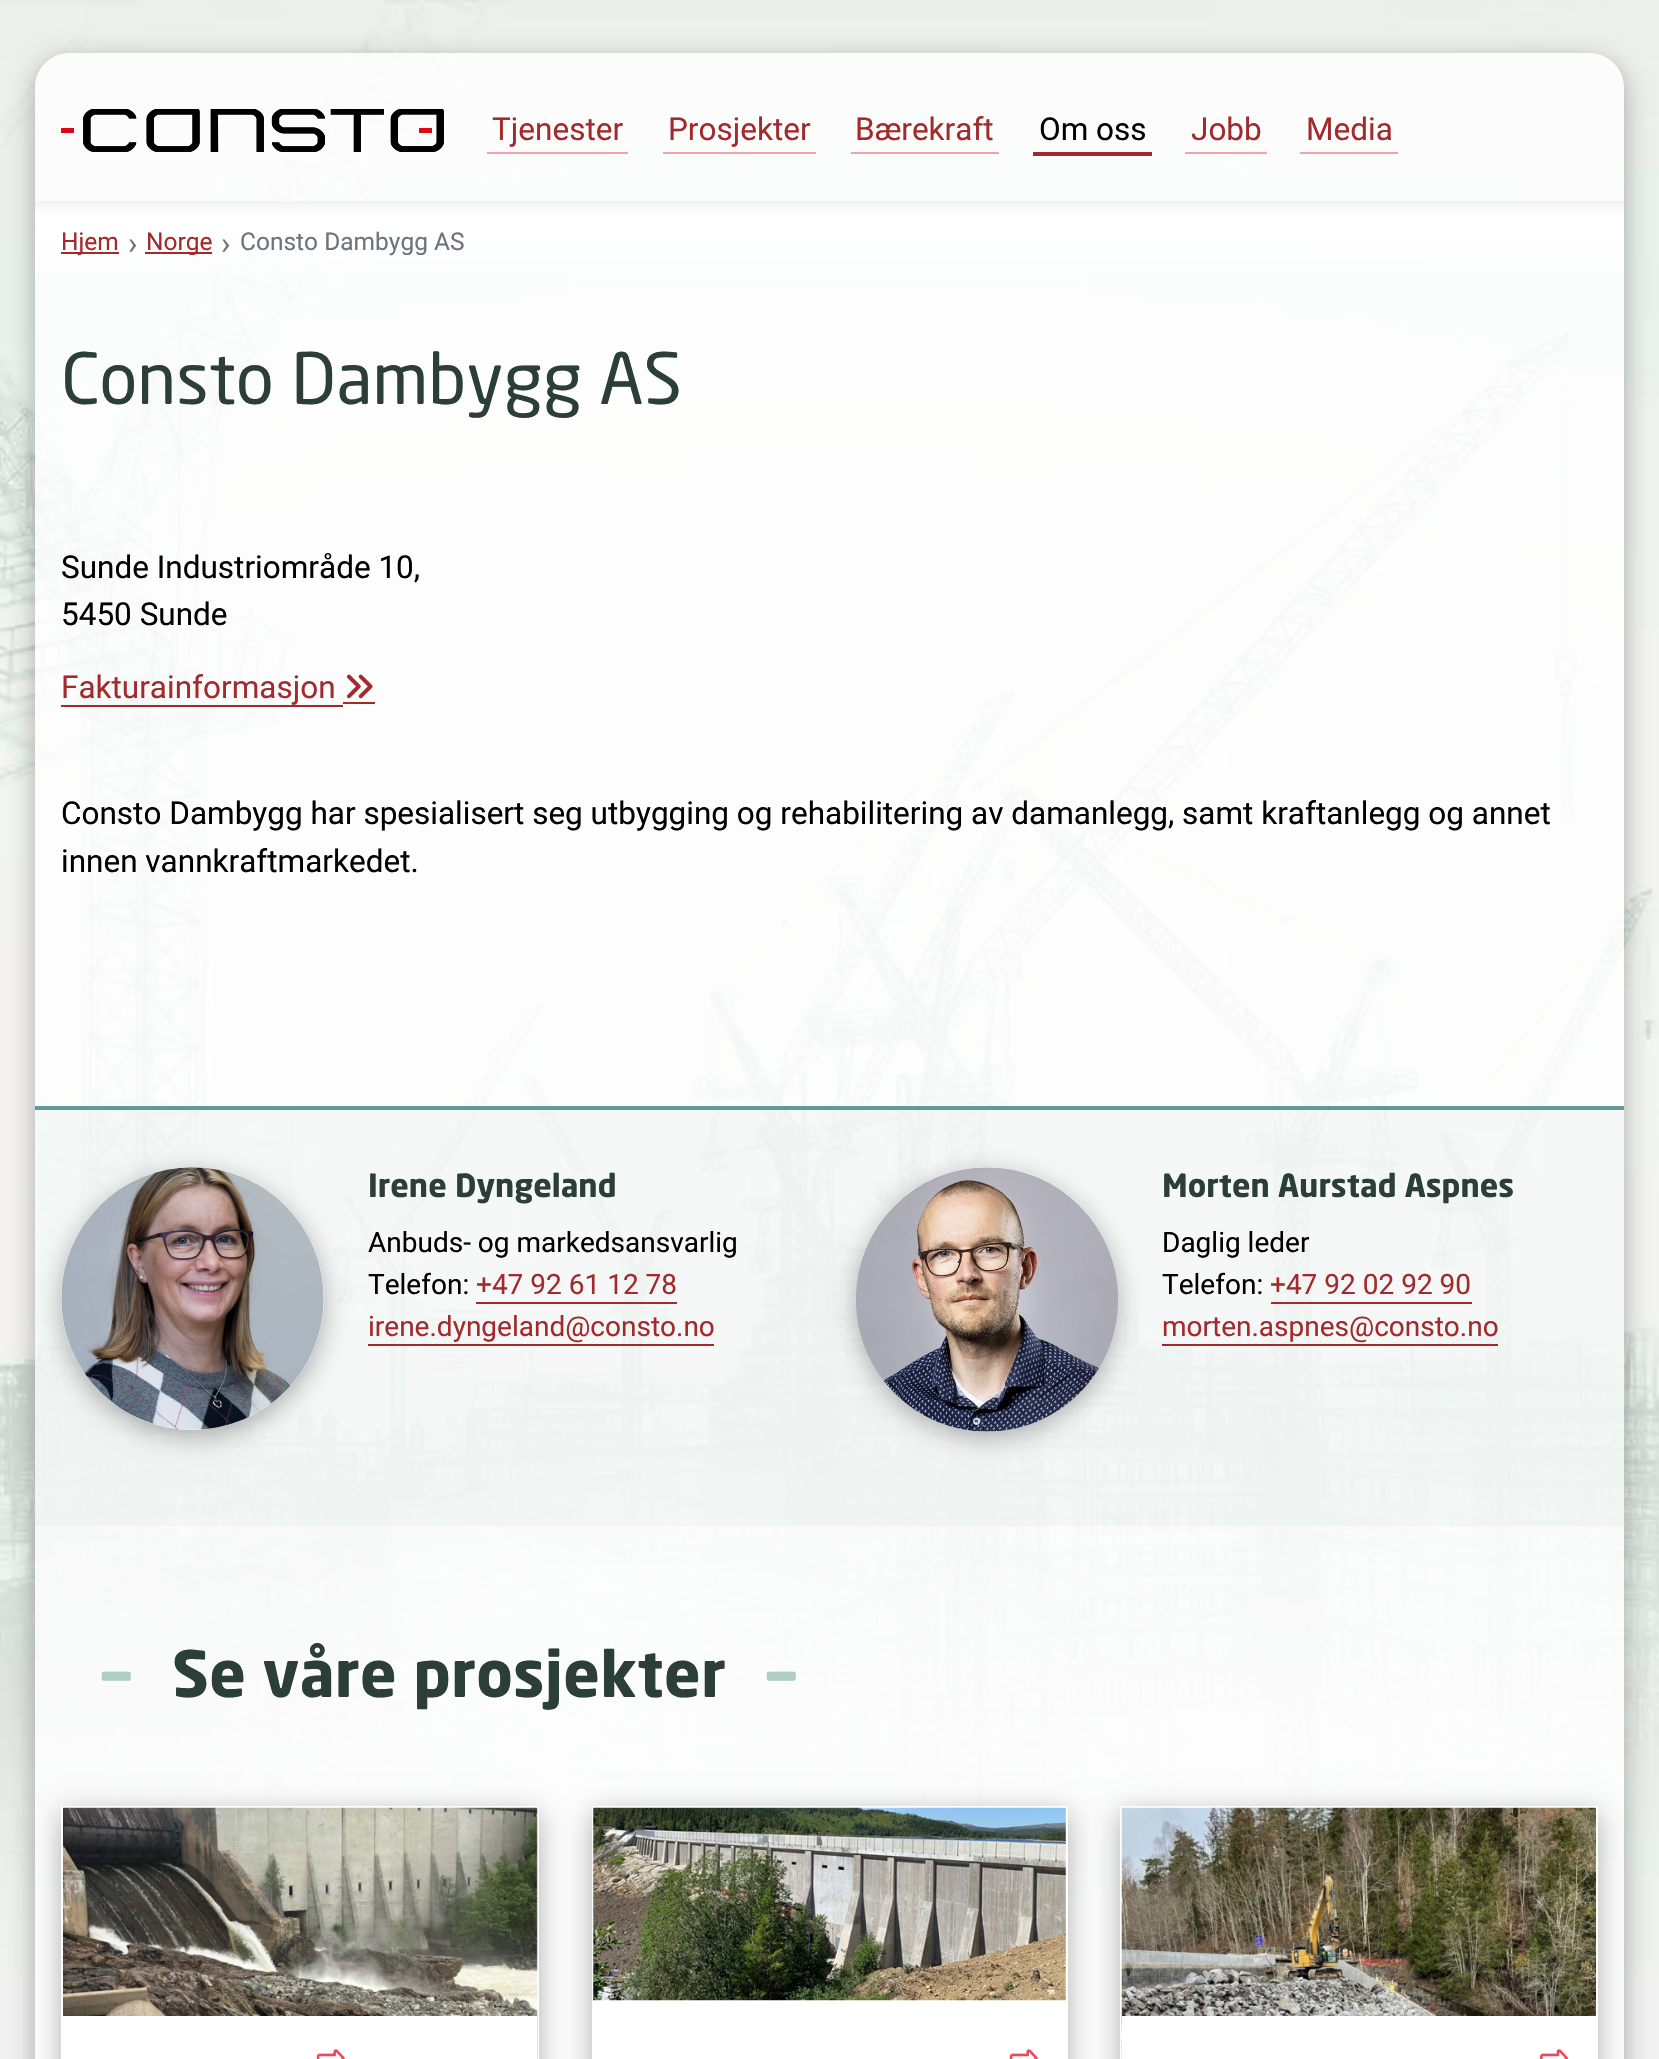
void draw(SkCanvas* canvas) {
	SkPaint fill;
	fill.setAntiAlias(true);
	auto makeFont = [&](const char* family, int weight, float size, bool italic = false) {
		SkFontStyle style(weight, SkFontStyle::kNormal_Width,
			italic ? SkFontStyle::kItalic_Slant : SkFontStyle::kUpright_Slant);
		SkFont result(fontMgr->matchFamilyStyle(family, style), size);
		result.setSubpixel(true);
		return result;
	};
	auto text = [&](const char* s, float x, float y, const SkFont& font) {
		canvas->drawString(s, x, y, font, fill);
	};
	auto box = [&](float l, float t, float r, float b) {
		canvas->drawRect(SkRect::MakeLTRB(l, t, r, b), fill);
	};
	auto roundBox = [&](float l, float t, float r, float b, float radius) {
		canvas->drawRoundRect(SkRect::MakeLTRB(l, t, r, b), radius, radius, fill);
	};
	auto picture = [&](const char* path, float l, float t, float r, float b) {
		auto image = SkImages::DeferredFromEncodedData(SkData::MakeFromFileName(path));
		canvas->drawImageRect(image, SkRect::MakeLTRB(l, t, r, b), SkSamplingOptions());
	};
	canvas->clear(0xFFF2F2F2);
	picture("image0.png", 0, 0, 1659, 1974);
	{
		const SkColor colors[] = {0xFFF2F2F2, 0x33F2F2F2, 0x00F2F2F2};
		const float stops[] = {0, 0.5f, 0.7f};
		const SkPoint ends[] = {{830, 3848}, {830, 53}};
		fill.setShader(SkGradientShader::MakeLinear(ends, colors, stops, 3, SkTileMode::kClamp));
		fill.setAlpha(255);
	}
	box(0, 1345, 1659, 1839);
	canvas->save();
	canvas->clipPath(SkPathBuilder(SkPathFillType::kEvenOdd).moveTo(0, 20).lineTo(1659, 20).lineTo(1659, 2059).lineTo(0, 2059).close().moveTo(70, 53).lineTo(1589, 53).cubicTo(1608.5f, 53, 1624, 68.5f, 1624, 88).lineTo(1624, 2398).cubicTo(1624, 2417.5f, 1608.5f, 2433, 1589, 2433).lineTo(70, 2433).cubicTo(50.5f, 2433, 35, 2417.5f, 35, 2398).lineTo(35, 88).cubicTo(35, 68.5f, 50.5f, 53, 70, 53).close().detach(), true);
	fill.setShader(nullptr);
	fill.setColor(0x4D000000);
	fill.setMaskFilter(SkMaskFilter::MakeBlur(kNormal_SkBlurStyle, 13));
	canvas->drawRoundRect(SkRect::MakeLTRB(35, 60, 1624, 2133), 35, 35, fill);
	fill.setMaskFilter(nullptr);
	canvas->restore();
	fill.setColor(0xCCFFFFFF);
	canvas->drawPath(SkPathBuilder().moveTo(70, 53).lineTo(1589, 53).cubicTo(1608.5f, 53, 1624, 68.5f, 1624, 88).lineTo(1624, 201).lineTo(35, 201).lineTo(35, 88).cubicTo(35, 68.5f, 50.5f, 53, 70, 53).close().detach(), fill);
	picture("image1.png", 61, 109, 444, 152);
	fill.setColor(0xFFF4A2AB);
	box(487, 152, 628, 154);
	fill.setColor(0xFFF4A3AB);
	box(663, 152, 816, 154);
	box(851, 152, 999, 154);
	fill.setColor(0xFFA22A2C);
	box(1033, 152, 1152, 156);
	fill.setColor(0xFFF4A3AB);
	box(1185, 152, 1267, 154);
	box(1300, 152, 1398, 154);
	{
		const SkColor colors[] = {0xFFF2F2F2, 0xFFFFFFFF, 0xCCFFFFFF};
		const float stops[] = {0, 0.16f, 1};
		const SkPoint ends[] = {{830, 201}, {830, 284}};
		fill.setShader(SkGradientShader::MakeLinear(ends, colors, stops, 3, SkTileMode::kClamp));
		fill.setAlpha(255);
	}
	box(35, 201, 1624, 284);
	fill.setShader(nullptr);
	fill.setColor(0xFFA22A2C);
	box(61, 252, 119, 254);
	box(145, 252, 212, 254);
	fill.setColor(0xCCFFFFFF);
	box(35, 284, 1624, 420);
	box(35, 420, 1624, 2059);
	fill.setColor(0xFFA22A2C);
	box(61, 705, 343, 707);
	box(343, 702, 375, 704);
	picture("image2.png", 346, 674, 373, 699);
	fill.setColor(0x1AAFCDC7);
	box(35, 1110, 1624, 1526);
	fill.setColor(0xFF639998);
	box(35, 1106, 1624, 1110);
	fill.setColor(0x4D000000);
	fill.setMaskFilter(SkMaskFilter::MakeBlur(kNormal_SkBlurStyle, 13));
	canvas->drawRoundRect(SkRect::MakeLTRB(61, 1174, 324, 1437), 131.5f, 131.5f, fill);
	fill.setMaskFilter(nullptr);
	fill.setColor(0xFFFFFFFF);
	canvas->drawCircle(192.5f, 1298.5f, 131.5f, fill);
	picture("image3.png", 61, 1167, 324, 1430);
	fill.setColor(0xFFA22A2C);
	box(476, 1302, 677, 1304);
	box(368, 1344, 714, 1346);
	fill.setColor(0x4D000000);
	fill.setMaskFilter(SkMaskFilter::MakeBlur(kNormal_SkBlurStyle, 13));
	canvas->drawRoundRect(SkRect::MakeLTRB(856, 1174, 1118, 1437), 131, 131, fill);
	fill.setMaskFilter(nullptr);
	fill.setColor(0xFFFFFFFF);
	roundBox(856, 1167, 1118, 1430, 131);
	picture("image4.png", 856, 1167, 1118, 1432);
	fill.setColor(0xFFA22A2C);
	box(1271, 1302, 1472, 1304);
	box(1162, 1344, 1498, 1346);
	fill.setColor(0x4D000000);
	fill.setMaskFilter(SkMaskFilter::MakeBlur(kNormal_SkBlurStyle, 13));
	canvas->drawRect(SkRect::MakeLTRB(61, 1813, 539, 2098), fill);
	fill.setMaskFilter(nullptr);
	fill.setColor(0xFFFFFFFF);
	box(61, 1806, 539, 2059);
	picture("image5.png", 63, 1807, 538, 2059);
	box(63, 2016, 537, 2059);
	picture("image6.png", 316, 2049, 345, 2059);
	fill.setColor(0x4D000000);
	fill.setMaskFilter(SkMaskFilter::MakeBlur(kNormal_SkBlurStyle, 13));
	canvas->drawRect(SkRect::MakeLTRB(592, 1813, 1068, 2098), fill);
	fill.setMaskFilter(nullptr);
	fill.setColor(0xFFFFFFFF);
	box(592, 1806, 1068, 2059);
	picture("image7.png", 593, 1807, 1066, 2001);
	picture("image6.png", 1009, 2049, 1038, 2059);
	fill.setColor(0x4D000000);
	fill.setMaskFilter(SkMaskFilter::MakeBlur(kNormal_SkBlurStyle, 13));
	canvas->drawRect(SkRect::MakeLTRB(1120, 1813, 1598, 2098), fill);
	fill.setMaskFilter(nullptr);
	fill.setColor(0xFFFFFFFF);
	box(1120, 1806, 1598, 2059);
	picture("image8.png", 1121, 1807, 1596, 2059);
	box(1122, 2016, 1596, 2059);
	picture("image9.png", 1540, 2049, 1568, 2059);
	auto font1 = makeFont("Roboto", 400, 31.5f);
	fill.setColor(0xFFA22A2C);
	text("Tjenester", 492, 140, font1);
	text("Prosjekter", 668, 140, font1);
	text("Bærekraft", 855, 140, font1);
	fill.setColor(0xFF000000);
	text("Om oss", 1039, 140, font1);
	fill.setColor(0xFFA22A2C);
	text("Jobb", 1191, 140, font1);
	text("Media", 1306, 140, font1);
	auto font2 = makeFont("Roboto", 400, 24.5f);
	text("Hjem", 61, 250, font2);
	fill.setColor(0xFF6C757D);
	text("›", 128, 254, font1);
	fill.setColor(0xFFA22A2C);
	text("Norge", 146, 250, font2);
	fill.setColor(0xFF6C757D);
	text("›", 221, 254, font1);
	text("Consto Dambygg AS", 240, 250, font2);
	auto font3 = makeFont("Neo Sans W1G", 400, 70);
	fill.setColor(0xFF2B3E37);
	text("Consto Dambygg AS", 61, 404, font3);
	fill.setColor(0xFF000000);
	text("Sunde Industriområde 10,", 61, 578, font1);
	text("5450 Sunde", 61, 625, font1);
	fill.setColor(0xFFA22A2C);
	text("Fakturainformasjon", 61, 698, font1);
	fill.setColor(0xFF000000);
	text("Consto Dambygg har spesialisert seg utbygging og rehabilitering av damanlegg, samt kraftanlegg og annet", 61, 824, font1);
	text("innen vannkraftmarkedet.", 61, 872, font1);
	auto font4 = makeFont("Neo Sans W1G", 700, 31.5f);
	fill.setColor(0xFF2B3E37);
	text("Irene Dyngeland", 368, 1197, font4);
	auto font5 = makeFont("Roboto", 400, 28);
	fill.setColor(0xFF000000);
	text("Anbuds- og markedsansvarlig", 368, 1252, font5);
	text("Telefon:", 368, 1294, font5);
	fill.setColor(0xFFA22A2C);
	text("+47 92 61 12 78", 476, 1294, font5);
	text("irene.dyngeland@consto.no", 368, 1336, font5);
	fill.setColor(0xFF2B3E37);
	text("Morten Aurstad Aspnes", 1162, 1197, font4);
	fill.setColor(0xFF000000);
	text("Daglig leder", 1162, 1252, font5);
	text("Telefon:", 1162, 1294, font5);
	fill.setColor(0xFFA22A2C);
	text("+47 92 02 92 90", 1270, 1294, font5);
	text("morten.aspnes@consto.no", 1162, 1336, font5);
	auto font6 = makeFont("Neo Sans W1G", 400, 122);
	fill.setColor(0xFFAFCDC7);
	text("-", 96, 1712, font6);
	auto font7 = makeFont("Neo Sans W1G", 700, 63);
	fill.setColor(0xFF2B3E37);
	text("Se våre prosjekter", 172, 1697, font7);
	fill.setColor(0xFFAFCDC7);
	text("-", 761, 1712, font6);
}
